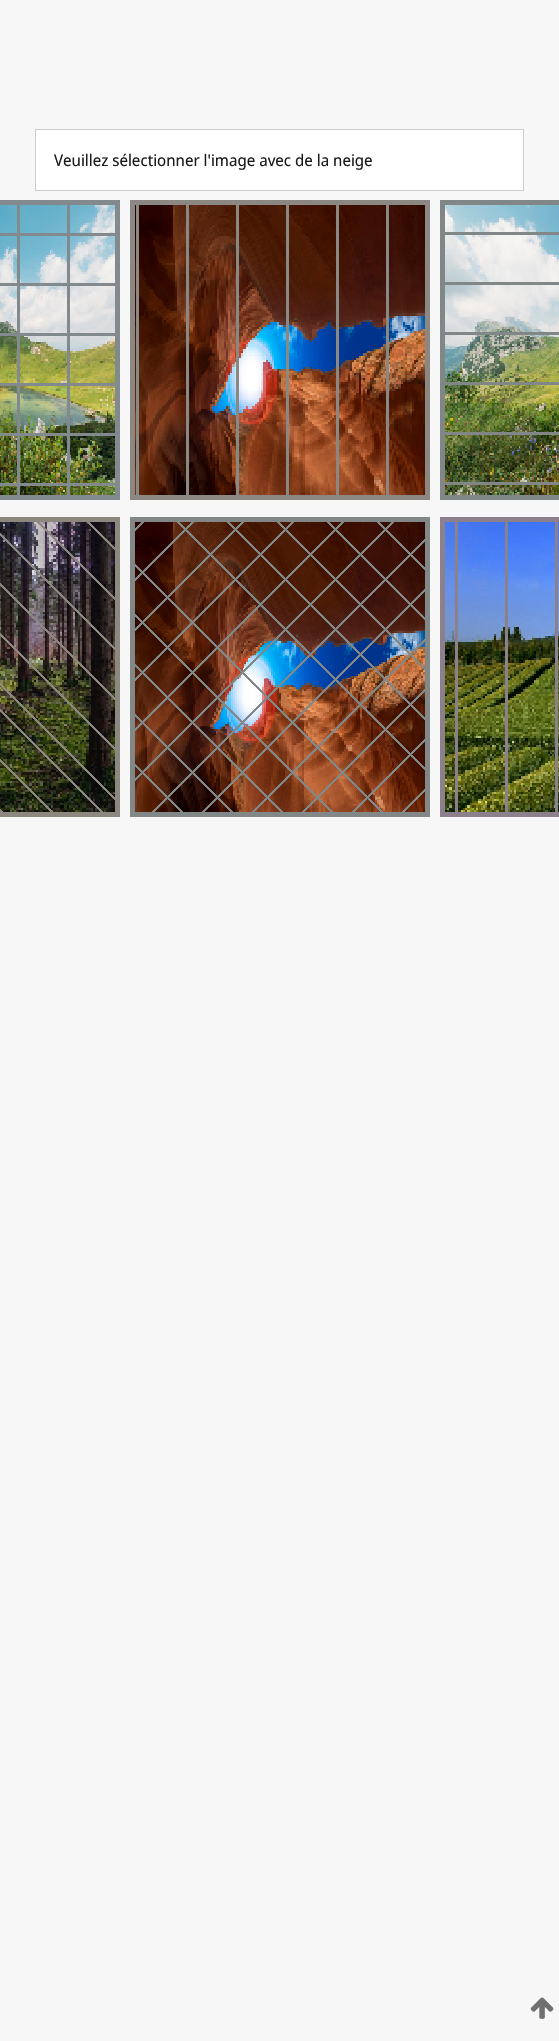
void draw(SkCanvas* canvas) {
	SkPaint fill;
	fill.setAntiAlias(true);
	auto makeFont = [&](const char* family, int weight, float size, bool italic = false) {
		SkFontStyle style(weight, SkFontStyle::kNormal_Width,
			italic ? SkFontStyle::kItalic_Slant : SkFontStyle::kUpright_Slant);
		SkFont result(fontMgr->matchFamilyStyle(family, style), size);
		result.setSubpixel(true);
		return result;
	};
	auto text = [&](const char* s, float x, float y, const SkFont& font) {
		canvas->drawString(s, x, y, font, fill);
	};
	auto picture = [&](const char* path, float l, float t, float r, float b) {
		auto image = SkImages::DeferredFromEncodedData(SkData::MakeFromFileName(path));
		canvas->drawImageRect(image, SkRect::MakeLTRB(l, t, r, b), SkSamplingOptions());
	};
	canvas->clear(0xFFF7F7F7);
	fill.setColor(0xFFFFFFFF);
	canvas->drawRect(SkRect::MakeLTRB(35.5f, 129.5f, 523.5f, 190.5f), fill);
	fill.setStyle(SkPaint::kStroke_Style);
	fill.setStrokeWidth(1);
	fill.setColor(0xFFCCCCCC);
	canvas->drawRect(SkRect::MakeLTRB(35.5f, 129.5f, 523.5f, 190.5f), fill);
	picture("image0.png", 0, 200, 120, 500);
	picture("image1.png", 130, 200, 430, 500);
	picture("image2.png", 440, 200, 559, 500);
	picture("image3.png", 0, 517, 120, 817);
	picture("image4.png", 130, 517, 430, 817);
	picture("image5.png", 440, 517, 559, 817);
	picture("image6.png", 530, 1997, 554, 2019);
	auto font1 = makeFont("Noto Sans Display", 400, 16);
	fill.setStyle(SkPaint::kFill_Style);
	fill.setColor(0xFF1A1A1A);
	text("Veuillez sélectionner l'image avec de la neige", 54, 166, font1);
}
